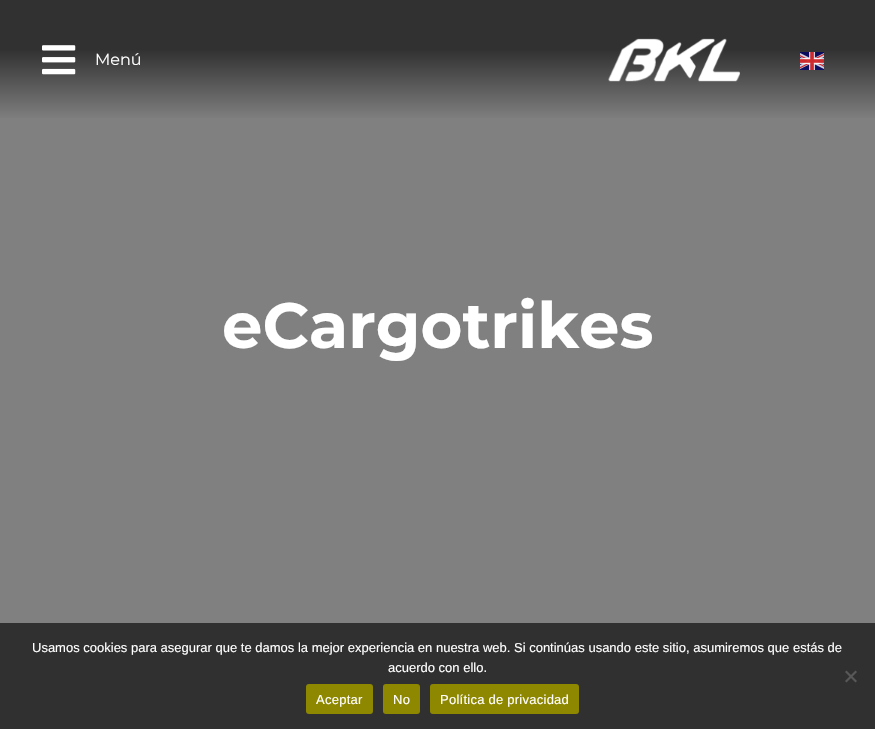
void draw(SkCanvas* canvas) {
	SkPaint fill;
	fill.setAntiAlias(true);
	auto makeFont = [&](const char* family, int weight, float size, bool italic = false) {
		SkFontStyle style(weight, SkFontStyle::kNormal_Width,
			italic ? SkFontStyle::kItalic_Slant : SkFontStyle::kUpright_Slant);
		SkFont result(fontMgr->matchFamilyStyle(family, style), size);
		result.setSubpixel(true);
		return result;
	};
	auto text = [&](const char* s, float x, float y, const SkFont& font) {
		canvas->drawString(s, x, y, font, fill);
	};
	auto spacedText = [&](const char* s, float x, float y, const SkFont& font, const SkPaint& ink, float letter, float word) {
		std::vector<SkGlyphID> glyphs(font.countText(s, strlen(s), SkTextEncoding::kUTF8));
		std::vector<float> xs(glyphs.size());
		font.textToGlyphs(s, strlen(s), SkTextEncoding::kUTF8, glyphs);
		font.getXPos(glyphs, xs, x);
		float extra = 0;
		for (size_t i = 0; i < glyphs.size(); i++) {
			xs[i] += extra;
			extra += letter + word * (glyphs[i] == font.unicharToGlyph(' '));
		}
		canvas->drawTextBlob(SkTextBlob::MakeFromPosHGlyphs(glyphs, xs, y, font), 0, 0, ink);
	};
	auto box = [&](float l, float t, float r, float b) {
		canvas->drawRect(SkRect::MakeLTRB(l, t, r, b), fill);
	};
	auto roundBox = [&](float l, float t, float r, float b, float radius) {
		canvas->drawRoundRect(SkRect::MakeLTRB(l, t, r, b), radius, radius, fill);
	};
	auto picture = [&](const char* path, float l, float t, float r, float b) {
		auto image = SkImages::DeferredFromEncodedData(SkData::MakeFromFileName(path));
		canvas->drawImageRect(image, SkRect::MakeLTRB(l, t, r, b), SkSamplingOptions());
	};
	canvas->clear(0xFF808080);
	{
		const SkColor colors[] = {0xFF313131, 0xFF808080};
		const float stops[] = {0.41f, 1};
		const SkPoint ends[] = {{438, 0}, {438, 120}};
		fill.setShader(SkGradientShader::MakeLinear(ends, colors, stops, 2, SkTileMode::kClamp));
		fill.setAlpha(255);
	}
	box(0, 0, 875, 118);
	picture("image0.png", 42, 45, 76, 75);
	picture("image1.png", 608, 38, 740, 82);
	picture("image2.png", 800, 52, 824, 70);
	fill.setShader(nullptr);
	fill.setColor(0xFF303030);
	box(0, 623, 875, 729);
	fill.setColor(0xFF585858);
	canvas->drawPath(SkPathBuilder().moveTo(855.5f, 670.5f).lineTo(857, 672).lineTo(846.5f, 682.5f).lineTo(845, 681).close().detach(), fill);
	canvas->drawPath(SkPathBuilder().moveTo(845, 672).lineTo(846.5f, 670.5f).lineTo(857, 681).lineTo(855.5f, 682.5f).close().detach(), fill);
	fill.setColor(0xFF8E8700);
	roundBox(306, 684, 373, 714, 3);
	roundBox(383, 684, 420, 714, 3);
	roundBox(430, 684, 579, 714, 3);
	auto font1 = makeFont("Montserrat", 400, 16);
	fill.setColor(0xFFFFFFFF);
	text("Menú", 95, 65, font1);
	auto font2 = makeFont("Montserrat", 700, 64);
	text("eCargotrikes", 222, 348, font2);
	auto font3 = makeFont("Liberation Sans", 400, 13);
	text("Usamos cookies para asegurar que te damos la mejor experiencia en nuestra web. Si continúas usando este sitio, asumiremos que estás de", 32, 652, font3);
	text("acuerdo con ello.", 388, 672, font3);
	spacedText("Aceptar", 316, 704, font3, fill, 0.25f, 0);
	spacedText("No", 393, 704, font3, fill, 0.25f, 0);
	spacedText("Política de privacidad", 440, 704, font3, fill, 0.25f, 0);
}
